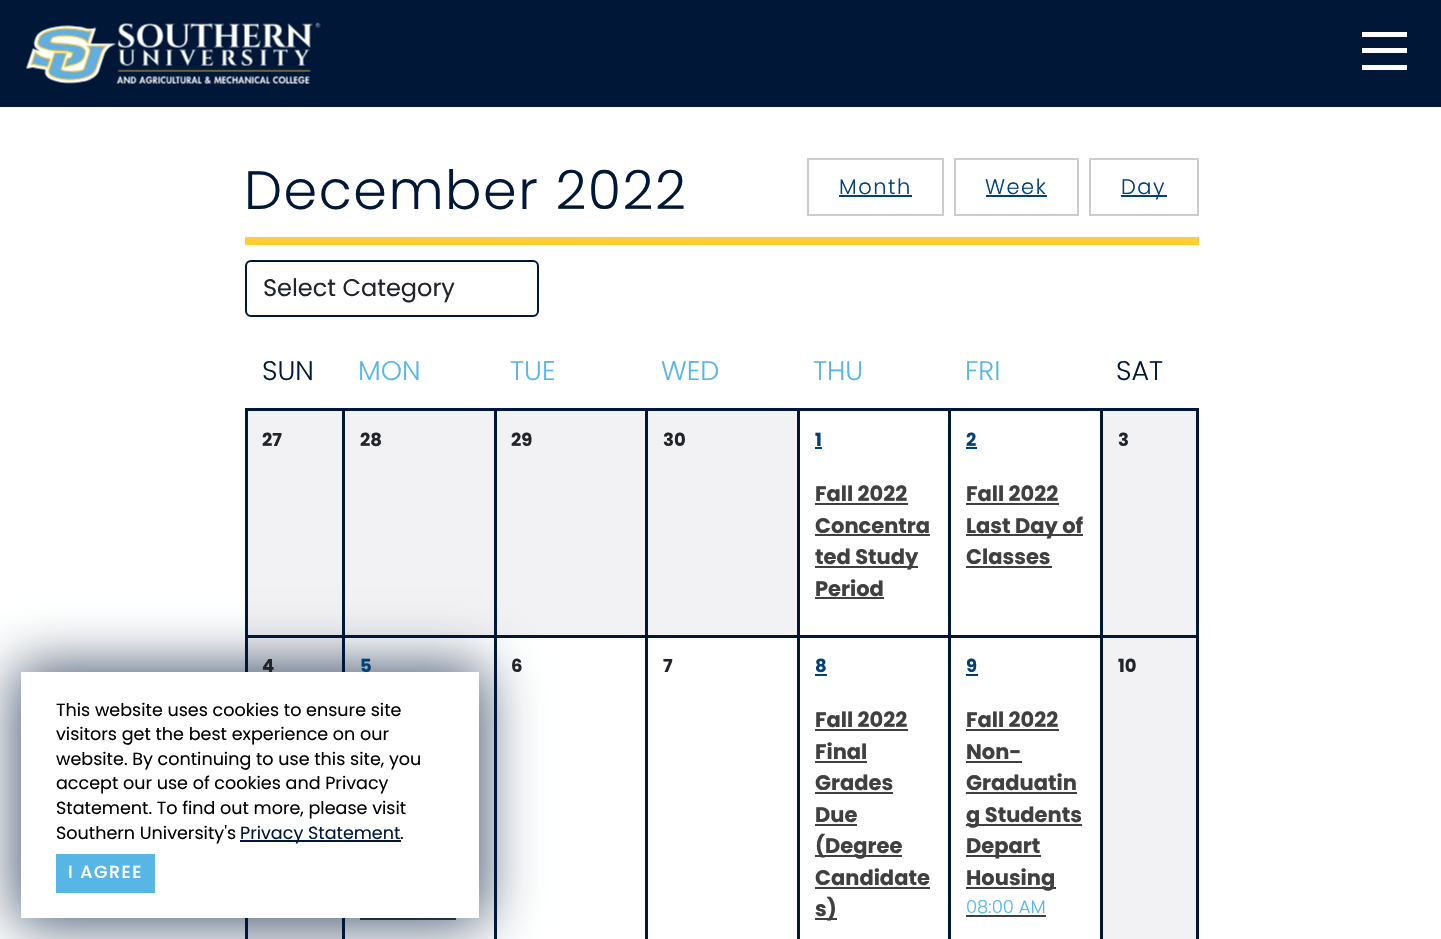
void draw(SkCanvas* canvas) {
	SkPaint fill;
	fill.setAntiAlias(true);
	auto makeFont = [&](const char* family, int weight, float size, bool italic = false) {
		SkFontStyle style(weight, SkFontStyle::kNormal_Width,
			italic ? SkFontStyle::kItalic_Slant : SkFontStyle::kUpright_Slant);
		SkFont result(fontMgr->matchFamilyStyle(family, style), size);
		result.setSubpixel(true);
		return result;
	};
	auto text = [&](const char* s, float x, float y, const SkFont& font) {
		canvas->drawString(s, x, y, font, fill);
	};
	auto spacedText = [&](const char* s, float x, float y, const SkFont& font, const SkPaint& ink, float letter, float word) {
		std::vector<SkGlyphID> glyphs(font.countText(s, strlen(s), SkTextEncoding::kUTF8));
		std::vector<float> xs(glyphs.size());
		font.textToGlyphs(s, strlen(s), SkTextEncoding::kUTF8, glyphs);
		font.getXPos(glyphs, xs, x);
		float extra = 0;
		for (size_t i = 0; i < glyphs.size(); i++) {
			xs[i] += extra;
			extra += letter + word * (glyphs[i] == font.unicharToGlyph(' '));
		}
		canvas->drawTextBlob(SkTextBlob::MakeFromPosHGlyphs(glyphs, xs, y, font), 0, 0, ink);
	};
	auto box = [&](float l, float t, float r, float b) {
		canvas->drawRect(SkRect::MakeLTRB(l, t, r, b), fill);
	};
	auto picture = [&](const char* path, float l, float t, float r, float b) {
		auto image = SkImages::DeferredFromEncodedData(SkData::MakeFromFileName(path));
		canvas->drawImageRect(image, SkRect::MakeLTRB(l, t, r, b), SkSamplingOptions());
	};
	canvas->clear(0xFFFFFFFF);
	fill.setColor(0xFF001738);
	box(0, 0, 1441, 107);
	picture("image0.png", 26, 22, 321, 84);
	fill.setColor(0xFFFFFFFF);
	box(1362, 32, 1407, 37);
	box(1362, 48, 1407, 53);
	box(1362, 65, 1407, 70);
	fill.setStyle(SkPaint::kStroke_Style);
	fill.setStrokeWidth(3);
	fill.setColor(0xFF001738);
	canvas->drawRect(SkRect::MakeLTRB(246.5f, 409.5f, 1197.5f, 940.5f), fill);
	fill.setStyle(SkPaint::kFill_Style);
	fill.setColor(0xFFF2F1F3);
	box(248, 411, 342, 635);
	box(345, 411, 494, 635);
	fill.setColor(0xFF001738);
	box(342, 411, 345, 635);
	fill.setColor(0xFFF2F1F3);
	box(497, 411, 645, 635);
	fill.setColor(0xFF001738);
	box(494, 411, 497, 635);
	box(248, 635, 1196, 638);
	fill.setColor(0xFFF2F1F3);
	box(248, 638, 342, 939);
	fill.setColor(0xFF001738);
	box(342, 638, 345, 939);
	fill.setColor(0xFF413F42);
	box(360, 918, 456, 920);
	fill.setColor(0xFF001738);
	box(494, 638, 497, 939);
	fill.setColor(0xBF001738);
	fill.setMaskFilter(SkMaskFilter::MakeBlur(kNormal_SkBlurStyle, 27));
	canvas->drawRect(SkRect::MakeLTRB(17, 668, 483, 923), fill);
	fill.setMaskFilter(nullptr);
	fill.setColor(0xFFFFFFFF);
	box(21, 672, 479, 918);
	fill.setColor(0xFF001738);
	box(240, 840, 401, 842);
	fill.setColor(0xFF58B6E7);
	box(56, 854, 155, 893);
	fill.setColor(0xFFFFCE34);
	box(245, 237, 1199, 245);
	fill.setStyle(SkPaint::kStroke_Style);
	fill.setStrokeWidth(2);
	fill.setColor(0xFFCCCCCC);
	canvas->drawRect(SkRect::MakeLTRB(808, 159, 943, 215), fill);
	fill.setStyle(SkPaint::kFill_Style);
	fill.setColor(0xFF004179);
	box(839, 195, 912, 197);
	fill.setStyle(SkPaint::kStroke_Style);
	fill.setColor(0xFFCCCCCC);
	canvas->drawRect(SkRect::MakeLTRB(955, 159, 1078, 215), fill);
	fill.setStyle(SkPaint::kFill_Style);
	fill.setColor(0xFF004179);
	box(986, 195, 1047, 197);
	fill.setStyle(SkPaint::kStroke_Style);
	fill.setColor(0xFFCCCCCC);
	canvas->drawRect(SkRect::MakeLTRB(1090, 159, 1198, 215), fill);
	fill.setStyle(SkPaint::kFill_Style);
	fill.setColor(0xFF004179);
	box(1121, 195, 1167, 197);
	fill.setStyle(SkPaint::kStroke_Style);
	fill.setColor(0xFF001738);
	canvas->drawRoundRect(SkRect::MakeLTRB(246, 261, 538, 316), 5, 5, fill);
	fill.setStyle(SkPaint::kFill_Style);
	fill.setColor(0xFFF2F1F3);
	box(648, 411, 797, 635);
	fill.setColor(0xFF001738);
	box(645, 411, 648, 635);
	box(797, 411, 800, 635);
	fill.setColor(0xFF004179);
	box(815, 447, 822, 449);
	fill.setColor(0xFF413F42);
	box(815, 503, 908, 505);
	box(815, 534, 930, 536);
	box(815, 566, 918, 568);
	box(815, 597, 884, 599);
	fill.setColor(0xFF001738);
	box(948, 411, 951, 635);
	fill.setColor(0xFF004179);
	box(966, 447, 977, 449);
	fill.setColor(0xFF413F42);
	box(966, 503, 1059, 505);
	box(966, 534, 1083, 536);
	box(966, 566, 1052, 568);
	fill.setColor(0xFFF2F1F3);
	box(1103, 411, 1196, 635);
	fill.setColor(0xFF001738);
	box(1100, 411, 1103, 635);
	box(645, 638, 648, 939);
	box(797, 638, 800, 939);
	fill.setColor(0xFF004179);
	box(815, 674, 827, 676);
	fill.setColor(0xFF413F42);
	box(815, 729, 908, 731);
	box(815, 761, 867, 763);
	box(815, 792, 893, 794);
	box(815, 824, 857, 826);
	box(815, 855, 902, 857);
	box(815, 887, 930, 889);
	box(815, 918, 837, 920);
	fill.setColor(0xFF001738);
	box(948, 638, 951, 939);
	fill.setColor(0xFF004179);
	box(966, 674, 978, 676);
	fill.setColor(0xFF413F42);
	box(966, 729, 1059, 731);
	box(966, 761, 1022, 763);
	box(966, 792, 1077, 794);
	box(966, 824, 1082, 826);
	box(966, 855, 1041, 857);
	box(966, 887, 1056, 889);
	box(966, 915, 1046, 917);
	fill.setColor(0xFFF2F1F3);
	box(1103, 638, 1196, 939);
	fill.setColor(0xFF001738);
	box(1100, 638, 1103, 939);
	auto font1 = makeFont("Poppins", 400, 17.55f);
	fill.setColor(0xFF000000);
	text("This website uses cookies to ensure site", 56, 716, font1);
	text("visitors get the best experience on our", 56, 740, font1);
	text("website. By continuing to use this site, you", 56, 765, font1);
	text("accept our use of cookies and Privacy", 56, 789, font1);
	text("Statement. To find out more, please visit", 56, 814, font1);
	text("Southern University's", 56, 839, font1);
	fill.setColor(0xFF001738);
	text("Privacy Statement", 240, 839, font1);
	fill.setColor(0xFF000000);
	text(".", 400, 839, font1);
	auto font2 = makeFont("Poppins", 500, 17.55f);
	fill.setColor(0xFFFFFFFF);
	spacedText("I AGREE", 68, 878, font2, fill, 1.5f, 0);
	auto font3 = makeFont("Poppins", 300, 54);
	fill.setColor(0xFF001738);
	spacedText("December 2022", 244, 209, font3, fill, 1.5f, 0);
	auto font4 = makeFont("Poppins", 300, 21);
	fill.setColor(0xFF004179);
	spacedText("Month", 839, 194, font4, fill, 1.5f, 0);
	spacedText("Week", 985, 194, font4, fill, 1.5f, 0);
	spacedText("Day", 1121, 194, font4, fill, 1.5f, 0);
	auto font5 = makeFont("Poppins", 400, 24);
	fill.setColor(0xFF212529);
	text("Select Category", 263, 296, font5);
	auto font6 = makeFont("Poppins", 300, 27);
	fill.setColor(0xFF001738);
	text("SUN", 262, 380, font6);
	fill.setColor(0xFF58B6E7);
	text("MON", 358, 380, font6);
	text("TUE", 510, 380, font6);
	text("WED", 661, 380, font6);
	text("THU", 813, 380, font6);
	text("FRI", 965, 380, font6);
	fill.setColor(0xFF001738);
	text("SAT", 1116, 380, font6);
	auto font7 = makeFont("Poppins", 700, 18);
	fill.setColor(0xFF212529);
	text("27", 262, 446, font7);
	text("28", 360, 446, font7);
	text("29", 511, 446, font7);
	text("30", 663, 446, font7);
	fill.setColor(0xFF004179);
	text("1", 815, 446, font7);
	auto font8 = makeFont("Poppins", 700, 21);
	fill.setColor(0xFF413F42);
	text("Fall 2022", 815, 501, font8);
	text("Concentra", 815, 533, font8);
	text("ted Study", 815, 564, font8);
	text("Period", 815, 596, font8);
	fill.setColor(0xFF004179);
	text("2", 966, 446, font7);
	fill.setColor(0xFF413F42);
	text("Fall 2022", 966, 501, font8);
	text("Last Day of", 966, 533, font8);
	text("Classes", 966, 564, font8);
	fill.setColor(0xFF212529);
	text("3", 1118, 446, font7);
	text("4", 262, 672, font7);
	fill.setColor(0xFF004179);
	text("5", 360, 672, font7);
	fill.setColor(0xFF212529);
	text("6", 511, 672, font7);
	text("7", 663, 672, font7);
	fill.setColor(0xFF004179);
	text("8", 815, 672, font7);
	fill.setColor(0xFF413F42);
	text("Fall 2022", 815, 727, font8);
	text("Final", 815, 759, font8);
	text("Grades", 815, 790, font8);
	text("Due", 815, 822, font8);
	text("(Degree", 815, 853, font8);
	text("Candidate", 815, 885, font8);
	text("s)", 815, 916, font8);
	fill.setColor(0xFF004179);
	text("9", 966, 672, font7);
	fill.setColor(0xFF413F42);
	text("Fall 2022", 966, 727, font8);
	text("Non-", 966, 759, font8);
	text("Graduatin", 966, 790, font8);
	text("g Students", 966, 822, font8);
	text("Depart", 966, 853, font8);
	text("Housing", 966, 885, font8);
	auto font9 = makeFont("Poppins", 300, 18);
	fill.setColor(0xFF58B6E7);
	text("08:00 AM", 966, 913, font9);
	fill.setColor(0xFF212529);
	text("10", 1118, 672, font7);
}
